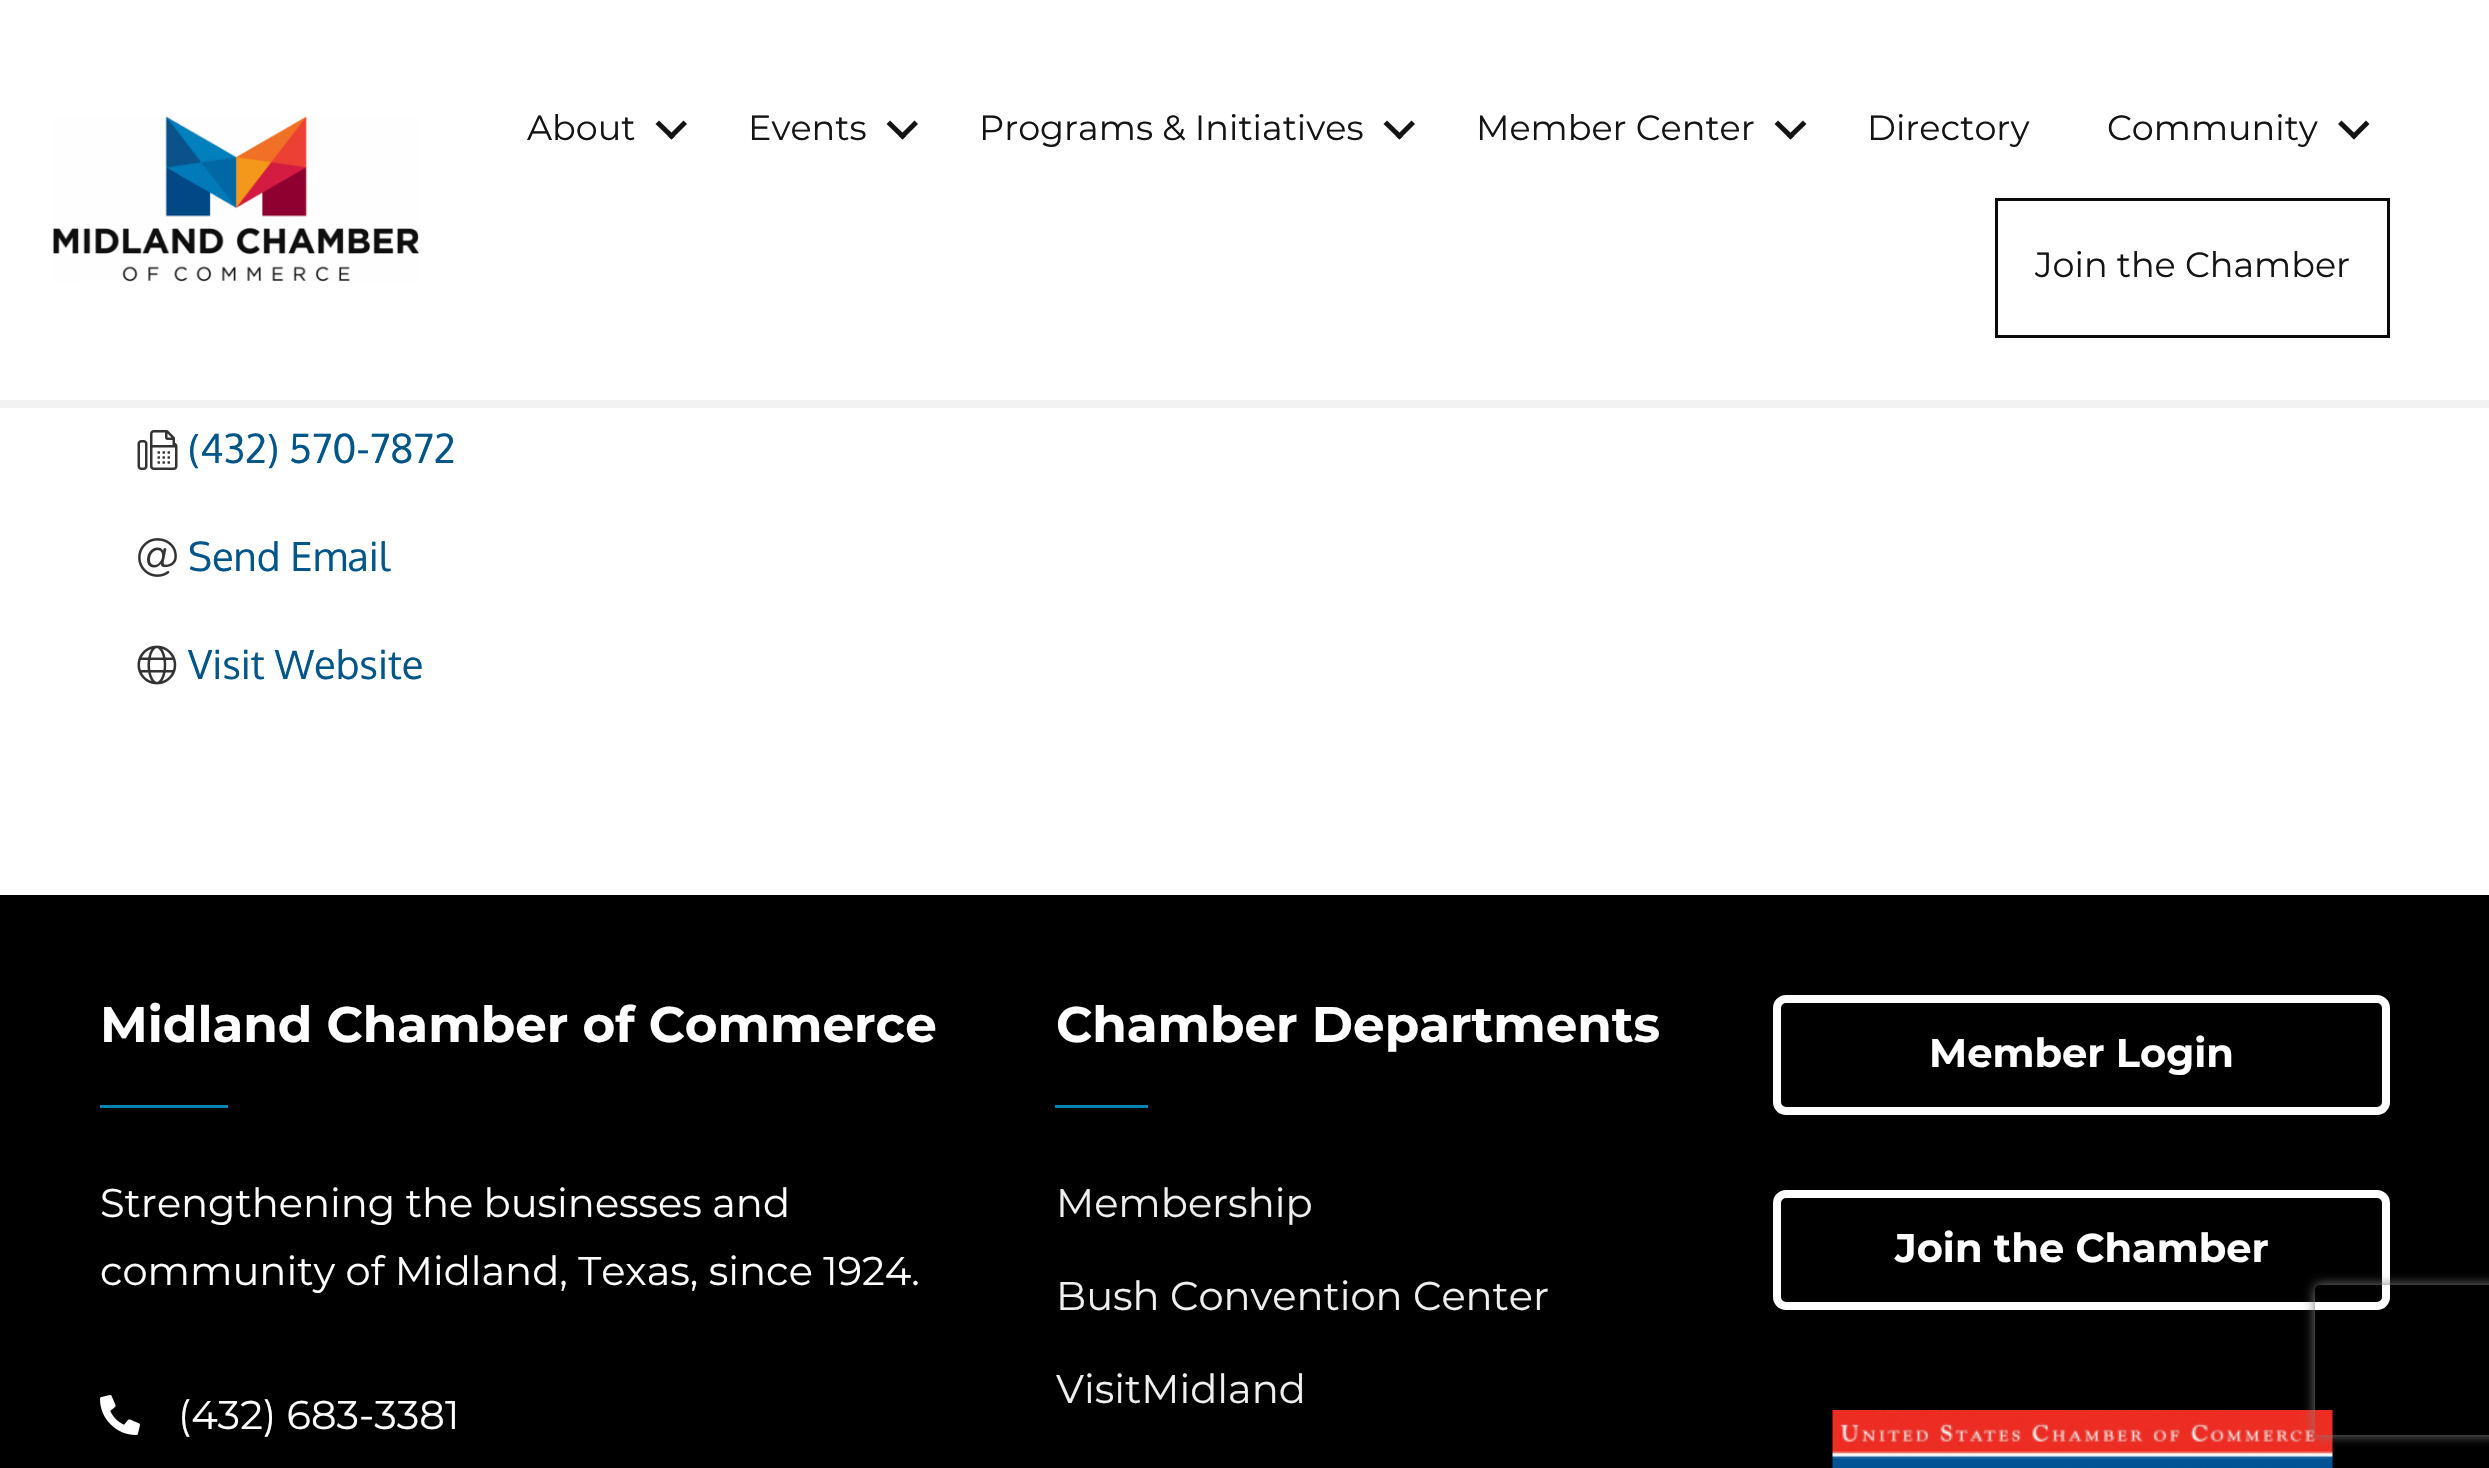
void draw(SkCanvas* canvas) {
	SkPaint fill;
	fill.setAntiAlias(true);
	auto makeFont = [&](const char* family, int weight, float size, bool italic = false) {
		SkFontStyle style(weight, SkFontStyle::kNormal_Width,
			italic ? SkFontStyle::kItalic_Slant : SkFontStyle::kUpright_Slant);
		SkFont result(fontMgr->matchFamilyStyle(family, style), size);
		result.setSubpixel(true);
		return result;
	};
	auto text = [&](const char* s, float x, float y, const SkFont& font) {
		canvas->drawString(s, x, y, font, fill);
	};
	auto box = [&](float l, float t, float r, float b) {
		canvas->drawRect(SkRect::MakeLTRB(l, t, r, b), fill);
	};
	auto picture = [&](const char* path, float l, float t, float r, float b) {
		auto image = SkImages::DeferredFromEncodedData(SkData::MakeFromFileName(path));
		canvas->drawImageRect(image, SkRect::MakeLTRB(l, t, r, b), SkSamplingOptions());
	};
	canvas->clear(0xFFFFFFFF);
	fill.setColor(0xFFF2F2F2);
	box(0, 400, 2489, 408);
	picture("image0.png", 52, 116, 420, 282);
	fill.setColor(0xFF141414);
	canvas->drawPath(SkPathBuilder().moveTo(683.5f, 120.5f).lineTo(687, 124).lineTo(671.5f, 139.5f).lineTo(668, 136).close().detach(), fill);
	canvas->drawPath(SkPathBuilder().moveTo(659, 120.5f).lineTo(675, 136).lineTo(671.5f, 139.5f).lineTo(655.5f, 124).close().detach(), fill);
	canvas->drawPath(SkPathBuilder().moveTo(914.5f, 120.5f).lineTo(918, 124).lineTo(902.5f, 139.5f).lineTo(899, 136).close().detach(), fill);
	canvas->drawPath(SkPathBuilder().moveTo(890, 120.5f).lineTo(906, 136).lineTo(902.5f, 139.5f).lineTo(886.5f, 124).close().detach(), fill);
	canvas->drawPath(SkPathBuilder().moveTo(1411.5f, 120.5f).lineTo(1415, 124).lineTo(1399.5f, 139.5f).lineTo(1396, 136).close().detach(), fill);
	canvas->drawPath(SkPathBuilder().moveTo(1387, 120.5f).lineTo(1403, 136).lineTo(1399.5f, 139.5f).lineTo(1383.5f, 124).close().detach(), fill);
	canvas->drawPath(SkPathBuilder().moveTo(1803, 120.5f).lineTo(1806.5f, 124).lineTo(1790.5f, 139.5f).lineTo(1787, 136).close().detach(), fill);
	canvas->drawPath(SkPathBuilder().moveTo(1778, 120.5f).lineTo(1794, 136).lineTo(1790.5f, 139.5f).lineTo(1774.5f, 124).close().detach(), fill);
	canvas->drawPath(SkPathBuilder().moveTo(2366, 120.5f).lineTo(2369.5f, 124).lineTo(2354, 139.5f).lineTo(2350.5f, 136).close().detach(), fill);
	canvas->drawPath(SkPathBuilder().moveTo(2341.5f, 120.5f).lineTo(2357.5f, 136).lineTo(2354, 139.5f).lineTo(2338, 124).close().detach(), fill);
	fill.setStyle(SkPaint::kStroke_Style);
	fill.setStrokeWidth(3);
	fill.setColor(0xFF0A0A0A);
	canvas->drawRect(SkRect::MakeLTRB(1996.5f, 199.5f, 2388.5f, 336.5f), fill);
	picture("image1.png", 137, 430, 178, 470);
	picture("image2.png", 138, 538, 177, 577);
	picture("image3.png", 137, 645, 177, 685);
	fill.setStyle(SkPaint::kFill_Style);
	fill.setColor(0xFF000000);
	box(0, 895, 2489, 1468);
	fill.setColor(0xFF0081B4);
	box(100, 1105, 228, 1108);
	picture("image4.png", 100, 1395, 140, 1435);
	box(1055, 1105, 1148, 1108);
	fill.setStyle(SkPaint::kStroke_Style);
	fill.setStrokeWidth(8);
	fill.setColor(0xFFFFFFFF);
	canvas->drawRoundRect(SkRect::MakeLTRB(1777, 999, 2386, 1111), 9, 9, fill);
	canvas->drawRoundRect(SkRect::MakeLTRB(1777, 1194, 2386, 1306), 9, 9, fill);
	picture("image5.png", 1832, 1410, 2333, 1468);
	canvas->save();
	canvas->clipPath(SkPathBuilder(SkPathFillType::kEvenOdd).moveTo(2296, 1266).lineTo(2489, 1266).lineTo(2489, 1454).lineTo(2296, 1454).close().moveTo(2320, 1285).lineTo(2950, 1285).cubicTo(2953, 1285, 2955, 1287, 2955, 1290).lineTo(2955, 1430).cubicTo(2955, 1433, 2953, 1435, 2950, 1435).lineTo(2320, 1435).cubicTo(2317, 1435, 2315, 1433, 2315, 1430).lineTo(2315, 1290).cubicTo(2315, 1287, 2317, 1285, 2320, 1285).close().detach(), true);
	fill.setStyle(SkPaint::kFill_Style);
	fill.setColor(0xFF808080);
	fill.setMaskFilter(SkMaskFilter::MakeBlur(kNormal_SkBlurStyle, 6));
	canvas->drawRoundRect(SkRect::MakeLTRB(2315, 1285, 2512, 1435), 5, 5, fill);
	fill.setMaskFilter(nullptr);
	canvas->restore();
	auto font1 = makeFont("Montserrat", 400, 35);
	fill.setColor(0xFF141414);
	text("About", 527, 140, font1);
	text("Events", 748, 140, font1);
	text("Programs & Initiatives", 979, 140, font1);
	text("Member Center", 1476, 140, font1);
	text("Directory", 1867, 140, font1);
	text("Community", 2107, 140, font1);
	text("Join the Chamber", 2035, 277, font1);
	auto font2 = makeFont("Oxygen", 400, 40);
	fill.setColor(0xFF005589);
	text("(432) 570-7872", 188, 463, font2);
	text("Send Email", 188, 571, font2);
	text("Visit Website", 188, 679, font2);
	auto font3 = makeFont("Montserrat", 700, 50);
	fill.setColor(0xFFFFFFFF);
	text("Midland Chamber of Commerce", 100, 1042, font3);
	auto font4 = makeFont("Montserrat", 400, 40);
	text("Strengthening the businesses and", 100, 1217, font4);
	text("community of Midland, Texas, since 1924.", 100, 1285, font4);
	text("(432) 683-3381", 178, 1429, font4);
	text("Chamber Departments", 1056, 1042, font3);
	fill.setColor(0xFFEFEFEF);
	text("Membership", 1056, 1217, font4);
	text("Bush Convention Center", 1056, 1310, font4);
	text("VisitMidland", 1056, 1403, font4);
	auto font5 = makeFont("Montserrat", 700, 40);
	fill.setColor(0xFFFFFFFF);
	text("Member Login", 1929, 1067, font5);
	text("Join the Chamber", 1895, 1262, font5);
}
